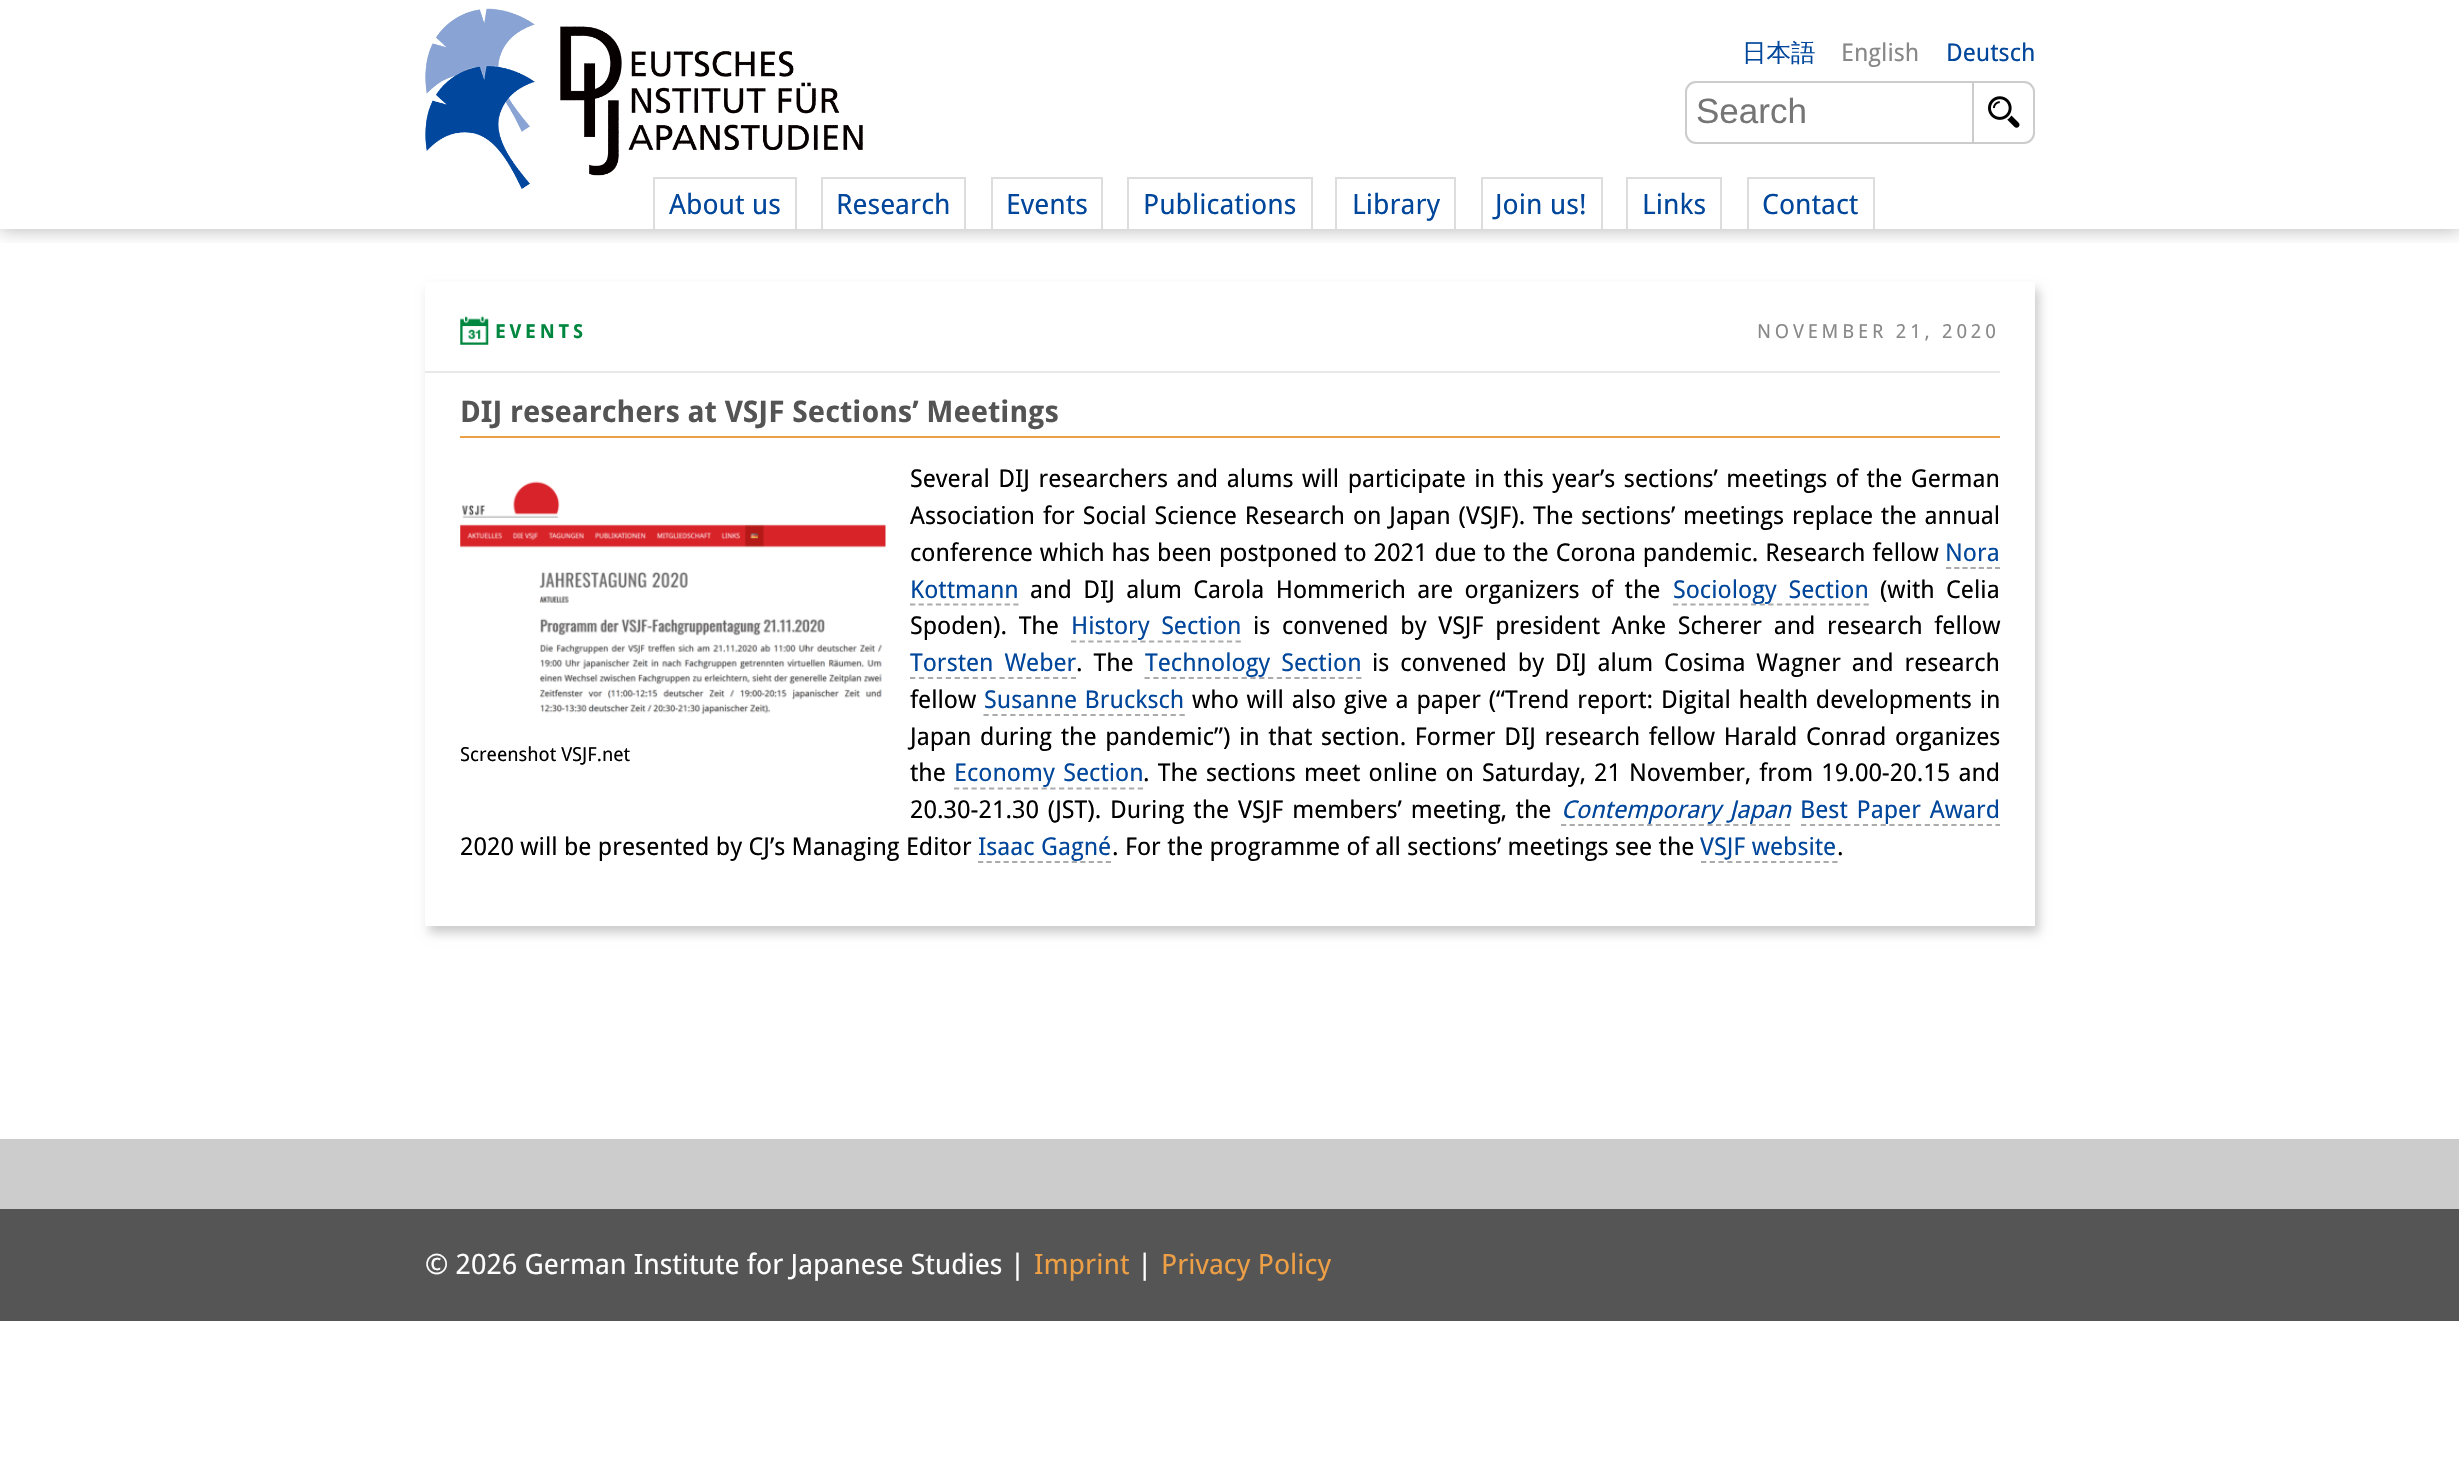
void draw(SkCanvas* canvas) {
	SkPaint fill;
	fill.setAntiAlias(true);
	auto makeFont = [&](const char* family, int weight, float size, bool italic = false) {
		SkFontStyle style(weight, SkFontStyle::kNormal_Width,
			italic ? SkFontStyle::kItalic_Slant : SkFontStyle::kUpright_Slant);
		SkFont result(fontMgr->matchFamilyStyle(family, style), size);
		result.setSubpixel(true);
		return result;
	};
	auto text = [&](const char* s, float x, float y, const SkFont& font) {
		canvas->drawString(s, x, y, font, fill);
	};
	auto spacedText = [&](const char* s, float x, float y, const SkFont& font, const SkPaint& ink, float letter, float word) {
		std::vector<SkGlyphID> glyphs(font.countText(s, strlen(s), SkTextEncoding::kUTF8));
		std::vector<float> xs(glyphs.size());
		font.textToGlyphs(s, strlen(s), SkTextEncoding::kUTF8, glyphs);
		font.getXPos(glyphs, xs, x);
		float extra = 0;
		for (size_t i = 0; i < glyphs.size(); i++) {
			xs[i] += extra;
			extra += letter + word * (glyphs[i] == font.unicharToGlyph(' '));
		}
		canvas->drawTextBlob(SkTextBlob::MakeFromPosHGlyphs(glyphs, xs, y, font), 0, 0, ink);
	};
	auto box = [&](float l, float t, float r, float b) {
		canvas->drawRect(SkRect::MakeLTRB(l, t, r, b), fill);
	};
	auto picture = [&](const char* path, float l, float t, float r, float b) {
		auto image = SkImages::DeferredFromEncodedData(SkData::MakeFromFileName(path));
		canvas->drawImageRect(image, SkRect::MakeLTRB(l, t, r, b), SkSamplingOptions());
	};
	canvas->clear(0xFFFFFFFF);
	canvas->save();
	canvas->clipRect(SkRect::MakeLTRB(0, 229, 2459, 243));
	fill.setColor(0x4D000000);
	fill.setMaskFilter(SkMaskFilter::MakeBlur(kNormal_SkBlurStyle, 9));
	canvas->drawRect(SkRect::MakeLTRB(0, 0, 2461, 229), fill);
	fill.setMaskFilter(nullptr);
	canvas->restore();
	picture("image0.png", 425, 8, 863, 189);
	picture("image1.png", 1988, 96, 2020, 128);
	fill.setStyle(SkPaint::kStroke_Style);
	fill.setStrokeWidth(2);
	fill.setColor(0xFFCCCCCC);
	canvas->drawPath(SkPathBuilder().moveTo(1973, 82).lineTo(2024, 82).cubicTo(2029.5f, 82, 2034, 86.5f, 2034, 92).lineTo(2034, 133).cubicTo(2034, 138.5f, 2029.5f, 143, 2024, 143).lineTo(1973, 143).close().detach(), fill);
	fill.setStyle(SkPaint::kFill_Style);
	fill.setColor(0xFFFFFFFF);
	canvas->drawPath(SkPathBuilder().moveTo(1696, 82).lineTo(1973, 82).lineTo(1973, 143).lineTo(1696, 143).cubicTo(1690.5f, 143, 1686, 138.5f, 1686, 133).lineTo(1686, 92).cubicTo(1686, 86.5f, 1690.5f, 82, 1696, 82).close().detach(), fill);
	fill.setStyle(SkPaint::kStroke_Style);
	fill.setColor(0xFFCCCCCC);
	canvas->drawPath(SkPathBuilder().moveTo(1696, 82).lineTo(1973, 82).lineTo(1973, 143).lineTo(1696, 143).cubicTo(1690.5f, 143, 1686, 138.5f, 1686, 133).lineTo(1686, 92).cubicTo(1686, 86.5f, 1690.5f, 82, 1696, 82).close().detach(), fill);
	fill.setStyle(SkPaint::kFill_Style);
	fill.setColor(0xFFDDDDDD);
	box(653, 177, 796, 179);
	box(795, 177, 797, 229);
	box(653, 177, 655, 229);
	box(821, 177, 966, 179);
	box(964, 177, 966, 229);
	box(821, 177, 823, 229);
	box(991, 177, 1103, 179);
	box(1101, 177, 1103, 229);
	box(991, 177, 993, 229);
	box(1127, 177, 1313, 179);
	box(1311, 177, 1313, 229);
	box(1127, 177, 1129, 229);
	box(1335, 177, 1456, 179);
	box(1454, 177, 1456, 229);
	box(1335, 177, 1337, 229);
	box(1481, 177, 1603, 179);
	box(1601, 177, 1603, 229);
	box(1481, 177, 1483, 229);
	box(1626, 177, 1722, 179);
	box(1720, 177, 1722, 229);
	box(1626, 177, 1628, 229);
	box(1747, 177, 1874, 179);
	box(1873, 177, 1875, 229);
	box(1747, 177, 1749, 229);
	fill.setColor(0xFFCCCCCC);
	fill.setMaskFilter(SkMaskFilter::MakeBlur(kNormal_SkBlurStyle, 5));
	canvas->drawRect(SkRect::MakeLTRB(429, 289, 2039, 933), fill);
	fill.setMaskFilter(nullptr);
	fill.setColor(0xFFFFFFFF);
	box(425, 282, 2035, 926);
	fill.setColor(0xFFE8E8E8);
	box(425, 371, 2000, 373);
	picture("image2.png", 460, 316, 489, 345);
	fill.setColor(0xFFED9F45);
	box(460, 436, 2000, 438);
	fill.setStyle(SkPaint::kStroke_Style);
	fill.setStrokeWidth(1.8f);
	fill.setColor(0xFFABABAB);
	fill.setPathEffect(SkDashPathEffect::Make({{5.25f, 2.92f}}, 0));
	canvas->drawPath(SkPathBuilder().moveTo(1946, 568).lineTo(2000, 568).detach(), fill);
	fill.setPathEffect(nullptr);
	fill.setPathEffect(SkDashPathEffect::Make({{5.25f, 3.36f}}, 0));
	canvas->drawPath(SkPathBuilder().moveTo(910, 604.5f).lineTo(1018.5f, 604.5f).detach(), fill);
	fill.setPathEffect(nullptr);
	fill.setPathEffect(SkDashPathEffect::Make({{5.25f, 3.41f}}, 0));
	canvas->drawPath(SkPathBuilder().moveTo(1673, 604.5f).lineTo(1869, 604.5f).detach(), fill);
	fill.setPathEffect(nullptr);
	fill.setPathEffect(SkDashPathEffect::Make({{5.25f, 3.41f}}, 0));
	canvas->drawPath(SkPathBuilder().moveTo(1071, 641.5f).lineTo(1241, 641.5f).detach(), fill);
	fill.setPathEffect(nullptr);
	fill.setPathEffect(SkDashPathEffect::Make({{5.25f, 3.69f}}, 0));
	canvas->drawPath(SkPathBuilder().moveTo(910, 678).lineTo(1076, 678).detach(), fill);
	fill.setPathEffect(nullptr);
	fill.setPathEffect(SkDashPathEffect::Make({{5.25f, 3.57f}}, 0));
	canvas->drawPath(SkPathBuilder().moveTo(1144.5f, 678).lineTo(1361.5f, 678).detach(), fill);
	fill.setPathEffect(nullptr);
	fill.setPathEffect(SkDashPathEffect::Make({{5.25f, 3.66f}}, 0));
	canvas->drawPath(SkPathBuilder().moveTo(983.5f, 715).lineTo(1185, 715).detach(), fill);
	fill.setPathEffect(nullptr);
	fill.setPathEffect(SkDashPathEffect::Make({{5.25f, 3.5f}}, 0));
	canvas->drawPath(SkPathBuilder().moveTo(954, 788.5f).lineTo(1143, 788.5f).detach(), fill);
	fill.setPathEffect(nullptr);
	fill.setPathEffect(SkDashPathEffect::Make({{5.25f, 3.36f}}, 0));
	canvas->drawPath(SkPathBuilder().moveTo(1561, 825).lineTo(1790, 825).detach(), fill);
	fill.setPathEffect(nullptr);
	fill.setPathEffect(SkDashPathEffect::Make({{5.25f, 3.59f}}, 0));
	canvas->drawPath(SkPathBuilder().moveTo(1801, 825).lineTo(2000, 825).detach(), fill);
	fill.setPathEffect(nullptr);
	fill.setPathEffect(SkDashPathEffect::Make({{5.25f, 3.27f}}, 0));
	canvas->drawPath(SkPathBuilder().moveTo(978, 862).lineTo(1111, 862).detach(), fill);
	fill.setPathEffect(nullptr);
	fill.setPathEffect(SkDashPathEffect::Make({{5.25f, 3.5f}}, 0));
	canvas->drawPath(SkPathBuilder().moveTo(1701, 862).lineTo(1837.5f, 862).detach(), fill);
	fill.setPathEffect(nullptr);
	picture("image3.png", 460, 481, 886, 715);
	fill.setStyle(SkPaint::kFill_Style);
	fill.setColor(0xFF555555);
	box(0, 1209, 2459, 1321);
	fill.setColor(0xFFCCCCCC);
	box(0, 1139, 2459, 1209);
	auto font1 = makeFont("WenQuanYi Zen Hei", 500, 24.5f);
	fill.setColor(0xFF00469B);
	text("日本語", 1742, 61, font1);
	auto font2 = makeFont("Droid Sans", 400, 24.5f);
	fill.setColor(0xFF888888);
	text("English", 1841, 61, font2);
	fill.setColor(0xFF00469B);
	text("Deutsch", 1946, 61, font2);
	auto font3 = makeFont("Liberation Sans", 400, 35);
	fill.setColor(0xFF757575);
	text("Search", 1696, 123, font3);
	auto font4 = makeFont("Droid Sans", 400, 28);
	fill.setColor(0xFF00469B);
	text("About us", 669, 214, font4);
	text("Research", 836, 214, font4);
	text("Events", 1006, 214, font4);
	text("Publications", 1143, 214, font4);
	text("Library", 1352, 214, font4);
	text("Join us!", 1495, 214, font4);
	text("Links", 1642, 214, font4);
	text("Contact", 1762, 214, font4);
	auto font5 = makeFont("Droid Sans", 700, 19.25f);
	fill.setColor(0xFF00873F);
	spacedText("EVENTS", 495, 338, font5, fill, 3.8f, 0);
	auto font6 = makeFont("Droid Sans", 400, 19.25f);
	fill.setColor(0xFF888888);
	spacedText("NOVEMBER 21, 2020", 1757, 338, font6, fill, 3.8f, 0);
	auto font7 = makeFont("Droid Sans", 700, 29.75f);
	fill.setColor(0xFF545454);
	text("DIJ researchers at VSJF Sections’ Meetings", 460, 422, font7);
	fill.setColor(0xFF000000);
	spacedText("Several DIJ researchers and alums will participate in this year’s sections’ meetings of the German", 910, 487, font2, fill, 0, 2.1f);
	spacedText("Association for Social Science Research on Japan (VSJF). The sections’ meetings replace the annual", 910, 524, font2, fill, 0, 1.5f);
	spacedText("conference which has been postponed to 2021 due to the Corona pandemic. Research fellow", 910, 561, font2, fill, 0, 0.6f);
	fill.setColor(0xFF00469B);
	text("Nora", 1945, 561, font2);
	text("Kottmann", 910, 598, font2);
	fill.setColor(0xFF000000);
	spacedText("and DIJ alum Carola Hommerich are organizers of the", 1030, 598, font2, fill, 0, 5);
	fill.setColor(0xFF00469B);
	spacedText("Sociology Section", 1673, 598, font2, fill, 0, 5.25f);
	fill.setColor(0xFF000000);
	spacedText("(with Celia", 1880, 598, font2, fill, 0, 5);
	spacedText("Spoden). The", 910, 634, font2, fill, 0, 5.25f);
	fill.setColor(0xFF00469B);
	spacedText("History Section", 1071, 634, font2, fill, 0, 5);
	fill.setColor(0xFF000000);
	spacedText("is convened by VSJF president Anke Scherer and research fellow", 1253, 634, font2, fill, 0, 5.25f);
	fill.setColor(0xFF00469B);
	spacedText("Torsten Weber", 910, 671, font2, fill, 0, 4.5f);
	fill.setColor(0xFF000000);
	spacedText(". The", 1076, 671, font2, fill, 0, 4.5f);
	fill.setColor(0xFF00469B);
	spacedText("Technology Section", 1145, 671, font2, fill, 0, 4.5f);
	fill.setColor(0xFF000000);
	spacedText("is convened by DIJ alum Cosima Wagner and research", 1372, 671, font2, fill, 0, 4.5f);
	text("fellow", 910, 708, font2);
	fill.setColor(0xFF00469B);
	spacedText("Susanne Brucksch", 984, 708, font2, fill, 0, 1);
	fill.setColor(0xFF000000);
	spacedText("who will also give a paper (“Trend report: Digital health developments in", 1192, 708, font2, fill, 0, 1.4f);
	spacedText("Japan during the pandemic”) in that section. Former DIJ research fellow Harald Conrad organizes", 910, 745, font2, fill, 0, 2.25f);
	text("the", 910, 781, font2);
	fill.setColor(0xFF00469B);
	spacedText("Economy Section", 954, 781, font2, fill, 0, 2);
	fill.setColor(0xFF000000);
	spacedText(". The sections meet online on Saturday, 21 November, from 19.00-20.15 and", 1143, 781, font2, fill, 0, 1.75f);
	spacedText("20.30-21.30 (JST). During the VSJF members’ meeting, the", 910, 818, font2, fill, 0, 2.5f);
	auto font8 = makeFont("Droid Sans", 400, 24.5f, true);
	fill.setColor(0xFF00469B);
	spacedText("Contemporary Japan", 1561, 818, font8, fill, 0, 2.5f);
	spacedText("Best Paper Award", 1800, 818, font2, fill, 0, 2.5f);
	fill.setColor(0xFF000000);
	text("2020 will be presented by CJ’s Managing Editor", 460, 855, font2);
	fill.setColor(0xFF00469B);
	text("Isaac Gagné", 978, 855, font2);
	fill.setColor(0xFF000000);
	text(". For the programme of all sections’ meetings see the", 1112, 855, font2);
	fill.setColor(0xFF00469B);
	text("VSJF website", 1700, 855, font2);
	fill.setColor(0xFF000000);
	text(".", 1837, 855, font2);
	text("Screenshot VSJF.net", 460, 761, font6);
	fill.setColor(0xFFFFFFFF);
	text("© 2026 German Institute for Japanese Studies |", 425, 1274, font4);
	fill.setColor(0xFFED9F45);
	text("Imprint", 1034, 1274, font4);
	fill.setColor(0xFFFFFFFF);
	text("|", 1137, 1274, font4);
	fill.setColor(0xFFED9F45);
	text("Privacy Policy", 1161, 1274, font4);
}
